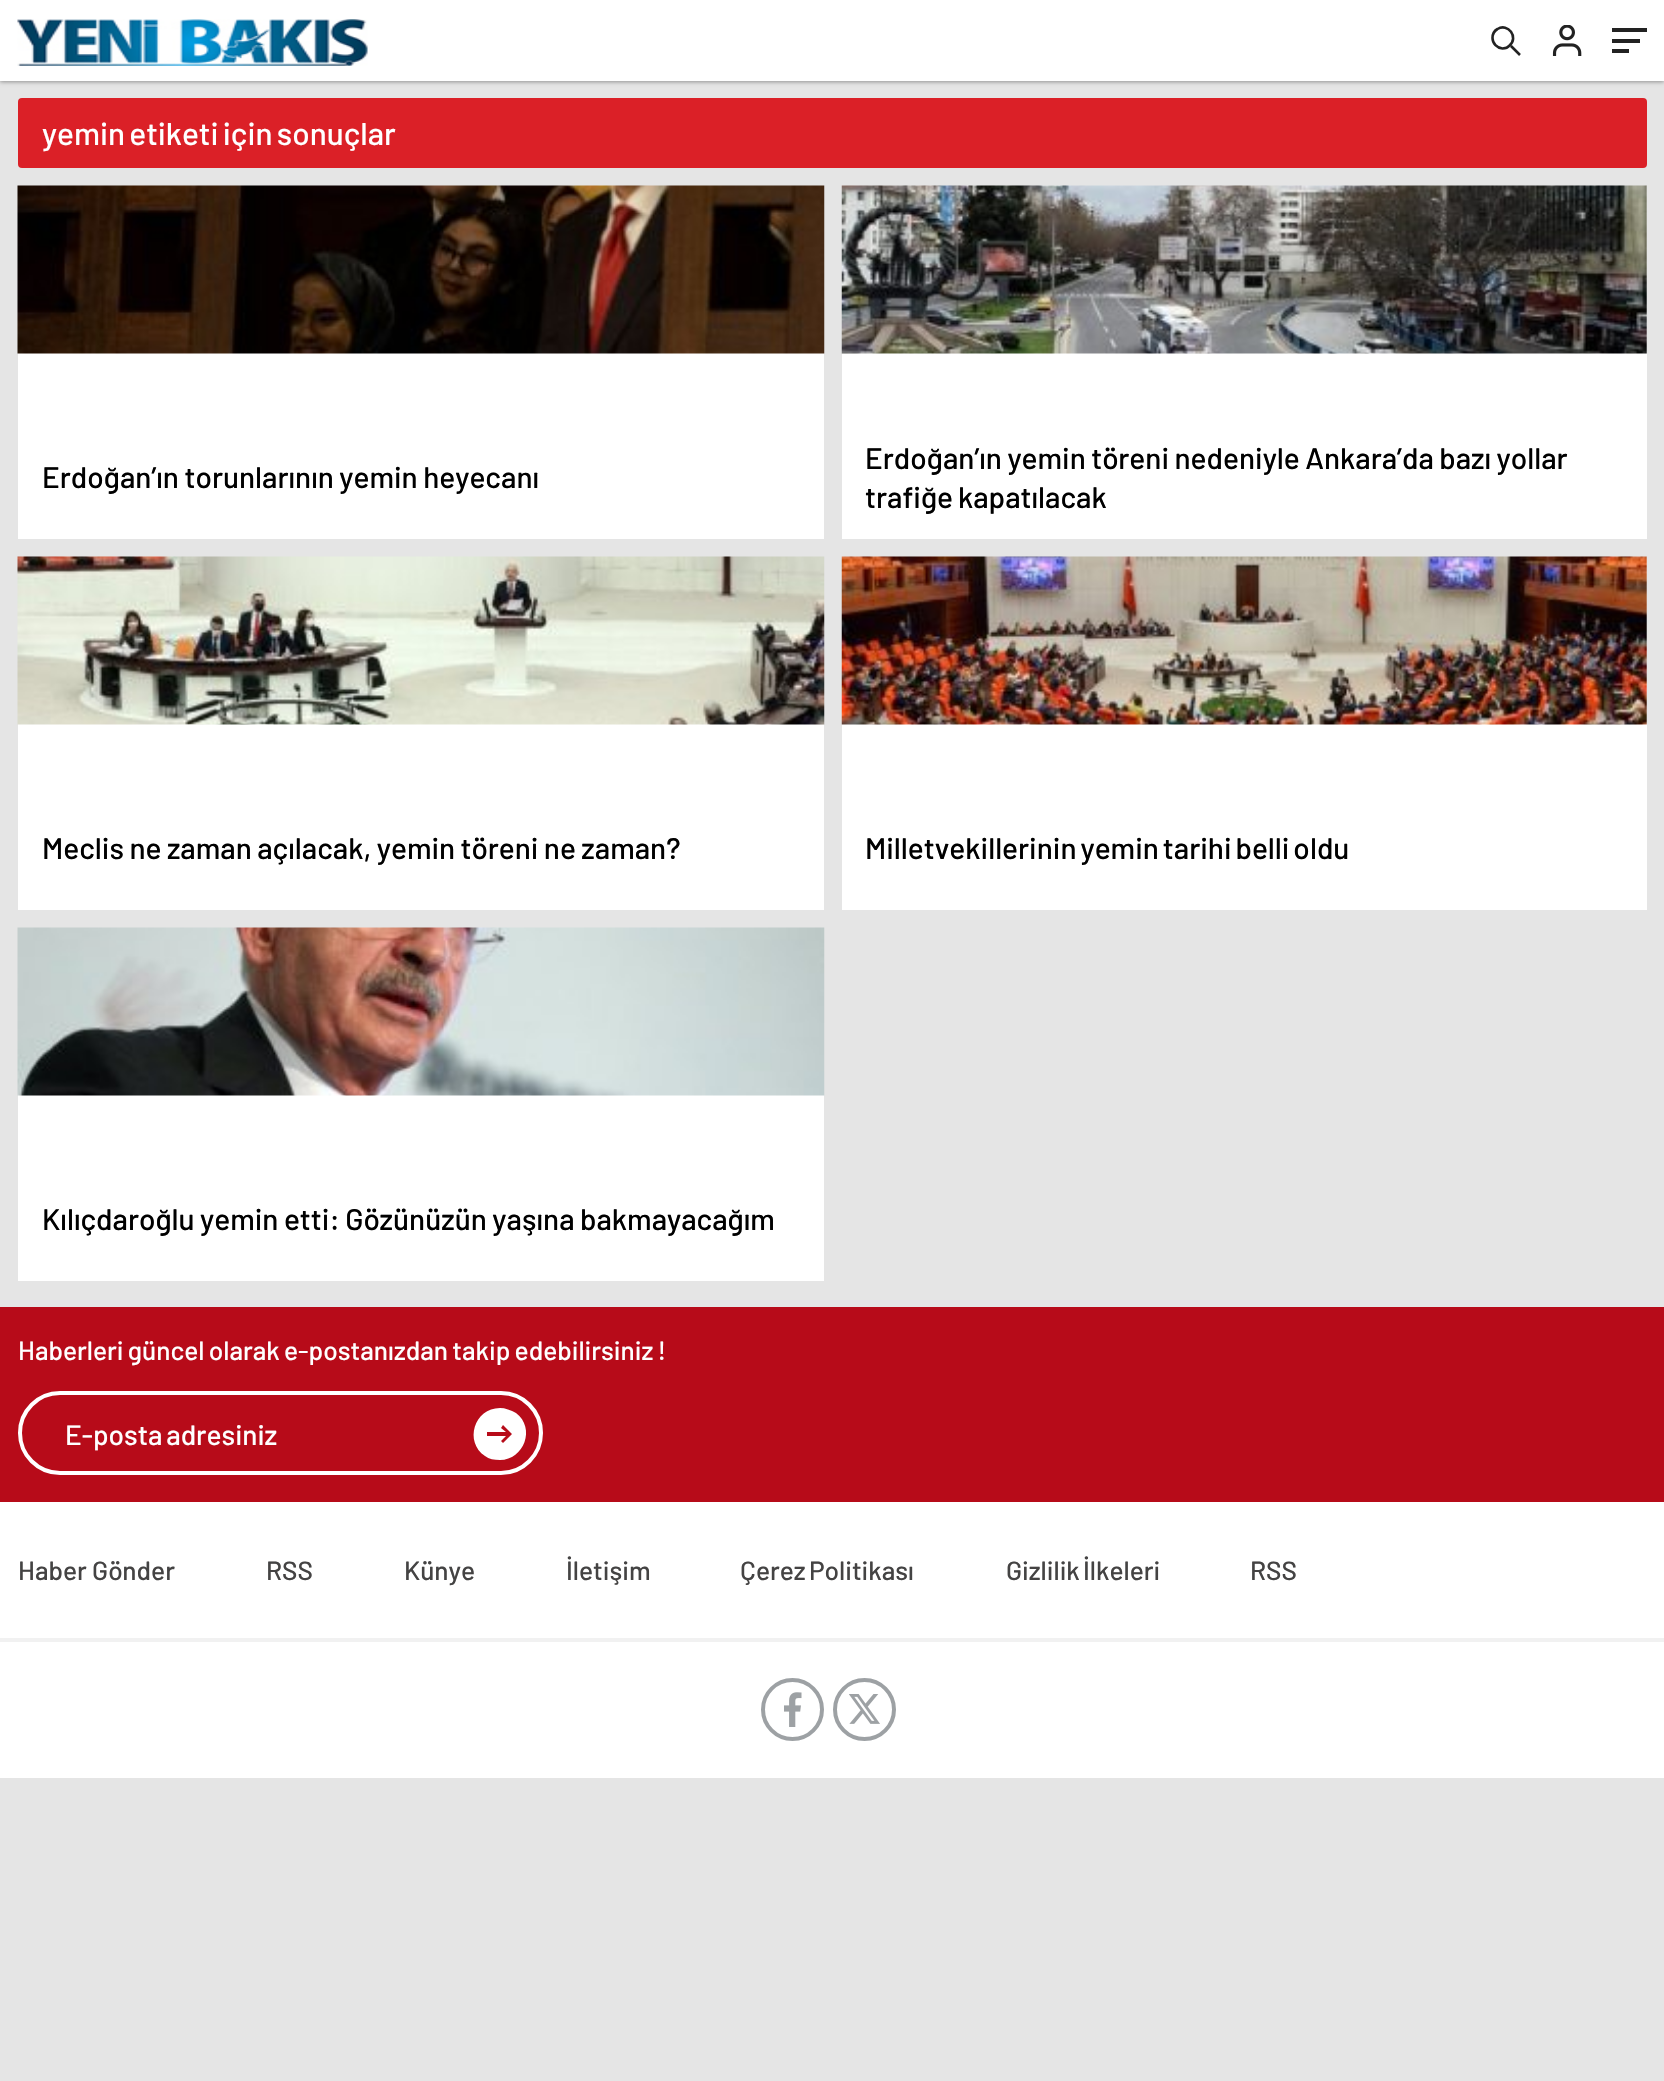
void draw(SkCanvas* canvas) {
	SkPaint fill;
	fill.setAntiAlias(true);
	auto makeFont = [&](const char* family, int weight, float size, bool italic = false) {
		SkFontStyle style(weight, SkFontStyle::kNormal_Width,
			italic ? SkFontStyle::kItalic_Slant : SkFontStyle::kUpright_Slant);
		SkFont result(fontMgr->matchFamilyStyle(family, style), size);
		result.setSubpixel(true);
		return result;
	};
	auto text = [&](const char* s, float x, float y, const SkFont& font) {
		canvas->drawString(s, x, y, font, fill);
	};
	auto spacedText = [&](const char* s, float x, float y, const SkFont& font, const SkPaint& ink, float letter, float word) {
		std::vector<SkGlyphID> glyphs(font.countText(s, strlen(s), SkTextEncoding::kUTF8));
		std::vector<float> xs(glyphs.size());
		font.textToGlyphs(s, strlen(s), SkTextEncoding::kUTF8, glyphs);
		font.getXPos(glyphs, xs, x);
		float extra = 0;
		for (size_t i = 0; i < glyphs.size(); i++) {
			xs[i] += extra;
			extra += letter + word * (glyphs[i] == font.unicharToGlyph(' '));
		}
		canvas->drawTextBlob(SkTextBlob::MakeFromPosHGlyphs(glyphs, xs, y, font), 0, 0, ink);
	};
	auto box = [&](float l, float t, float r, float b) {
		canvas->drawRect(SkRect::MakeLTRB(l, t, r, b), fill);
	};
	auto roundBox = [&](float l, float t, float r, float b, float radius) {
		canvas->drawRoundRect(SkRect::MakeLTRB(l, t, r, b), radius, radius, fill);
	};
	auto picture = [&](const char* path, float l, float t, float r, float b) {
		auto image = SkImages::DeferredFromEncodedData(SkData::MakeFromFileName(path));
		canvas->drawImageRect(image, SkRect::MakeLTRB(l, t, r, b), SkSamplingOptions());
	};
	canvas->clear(0xFFE5E5E5);
	fill.setColor(0x5E000000);
	fill.setMaskFilter(SkMaskFilter::MakeBlur(kNormal_SkBlurStyle, 2));
	canvas->drawRect(SkRect::MakeLTRB(0, 2, 1664, 82), fill);
	fill.setMaskFilter(nullptr);
	fill.setColor(0xFFFFFFFF);
	box(0, 0, 1664, 81);
	picture("image0.png", 17, 19, 368, 66);
	fill.setStyle(SkPaint::kStroke_Style);
	fill.setStrokeWidth(2.6f);
	fill.setStrokeCap(SkPaint::kRound_Cap);
	fill.setColor(0xFF222222);
	canvas->drawPath(SkPathBuilder().moveTo(1511, 46).lineTo(1520, 55).close().moveTo(1492.5f, 38).cubicTo(1492.5f, 34.5f, 1494, 31, 1497.5f, 29).cubicTo(1508, 22.5f, 1519, 37.5f, 1509.5f, 45.5f).cubicTo(1508, 47.5f, 1505.5f, 48.5f, 1502.5f, 48.5f).cubicTo(1497, 48, 1492.5f, 43.5f, 1492.5f, 38).close().detach(), fill);
	picture("image1.png", 1552, 25, 1582, 56);
	fill.setStyle(SkPaint::kFill_Style);
	box(1612, 28, 1647, 32);
	box(1612, 39, 1640, 43);
	box(1612, 49, 1629, 53);
	fill.setColor(0xFFDB2027);
	roundBox(18, 98, 1647, 168, 4);
	fill.setColor(0xFFFFFFFF);
	box(18, 353, 824, 539);
	picture("image2.png", 17, 185, 825, 354);
	box(842, 186, 1647, 539);
	picture("image3.png", 841, 185, 1647, 354);
	box(18, 724, 824, 910);
	picture("image4.png", 17, 556, 825, 725);
	box(842, 557, 1647, 910);
	picture("image5.png", 841, 556, 1647, 725);
	box(18, 1095, 824, 1281);
	picture("image6.png", 17, 927, 825, 1096);
	box(0, 1502, 1664, 1778);
	fill.setColor(0xFFB70B19);
	box(0, 1307, 1664, 1502);
	fill.setStyle(SkPaint::kStroke_Style);
	fill.setStrokeWidth(4);
	fill.setStrokeCap(SkPaint::kButt_Cap);
	fill.setColor(0xFFFFFFFF);
	canvas->drawRoundRect(SkRect::MakeLTRB(20, 1393, 541, 1473), 40, 40, fill);
	fill.setStyle(SkPaint::kFill_Style);
	canvas->drawPath(SkPathBuilder().moveTo(500, 1460).cubicTo(494, 1460, 489, 1459, 485, 1456).cubicTo(464, 1442, 474, 1408, 500, 1408).cubicTo(505, 1408, 511, 1410, 516, 1413).cubicTo(536, 1428, 524, 1460, 500, 1460).close().moveTo(487, 1432).lineTo(487, 1436).lineTo(506, 1436).lineTo(501, 1441).lineTo(503, 1443).lineTo(512, 1434).lineTo(503, 1425).lineTo(501, 1428).lineTo(506, 1432).close().detach(), fill);
	fill.setColor(0xFFF1F1F1);
	box(0, 1638, 1664, 1642);
	fill.setStyle(SkPaint::kStroke_Style);
	fill.setColor(0xFF9DA1A4);
	canvas->drawCircle(792.5f, 1709.5f, 29.5f, fill);
	picture("image7.png", 784, 1692, 802, 1727);
	canvas->drawCircle(864.5f, 1709.5f, 29.5f, fill);
	picture("image8.png", 849, 1694, 880, 1724);
	auto font1 = makeFont("Barlow", 500, 31.5f);
	fill.setStyle(SkPaint::kFill_Style);
	fill.setColor(0xFFFFFFFF);
	spacedText("yemin etiketi için sonuçlar", 42, 145, font1, fill, 0, -2);
	auto font2 = makeFont("Barlow", 500, 29.75f);
	fill.setColor(0xFF000000);
	spacedText("Erdoğan’ın torunlarının yemin heyecanı", 42, 488, font2, fill, 0, -0.5f);
	spacedText("Erdoğan’ın yemin töreni nedeniyle Ankara’da bazı yollar", 865, 469, font2, fill, 0, -0.5f);
	spacedText("trafiğe kapatılacak", 865, 508, font2, fill, 0, -1);
	spacedText("Meclis ne zaman açılacak, yemin töreni ne zaman?", 42, 859, font2, fill, 0, -0.5f);
	spacedText("Milletvekillerinin yemin tarihi belli oldu", 865, 859, font2, fill, 0, -2);
	spacedText("Kılıçdaroğlu yemin etti: Gözünüzün yaşına bakmayacağım", 42, 1230, font2, fill, 0, -0.5f);
	auto font3 = makeFont("Barlow", 500, 26.25f);
	fill.setColor(0xFFFFFFFF);
	spacedText("Haberleri güncel olarak e-postanızdan takip edebilirsiniz !", 18, 1360, font3, fill, 0, -1);
	auto font4 = makeFont("Barlow", 500, 28);
	spacedText("E-posta adresiniz", 65, 1445, font4, fill, 0, -2);
	fill.setColor(0xFF444343);
	text("Haber Gönder", 18, 1580, font3);
	text("RSS", 266, 1580, font3);
	text("Künye", 404, 1580, font3);
	text("İletişim", 566, 1580, font3);
	spacedText("Çerez Politikası", 740, 1580, font3, fill, 0, -2);
	spacedText("Gizlilik İlkeleri", 1006, 1580, font3, fill, 0, -2);
	text("RSS", 1250, 1580, font3);
}
